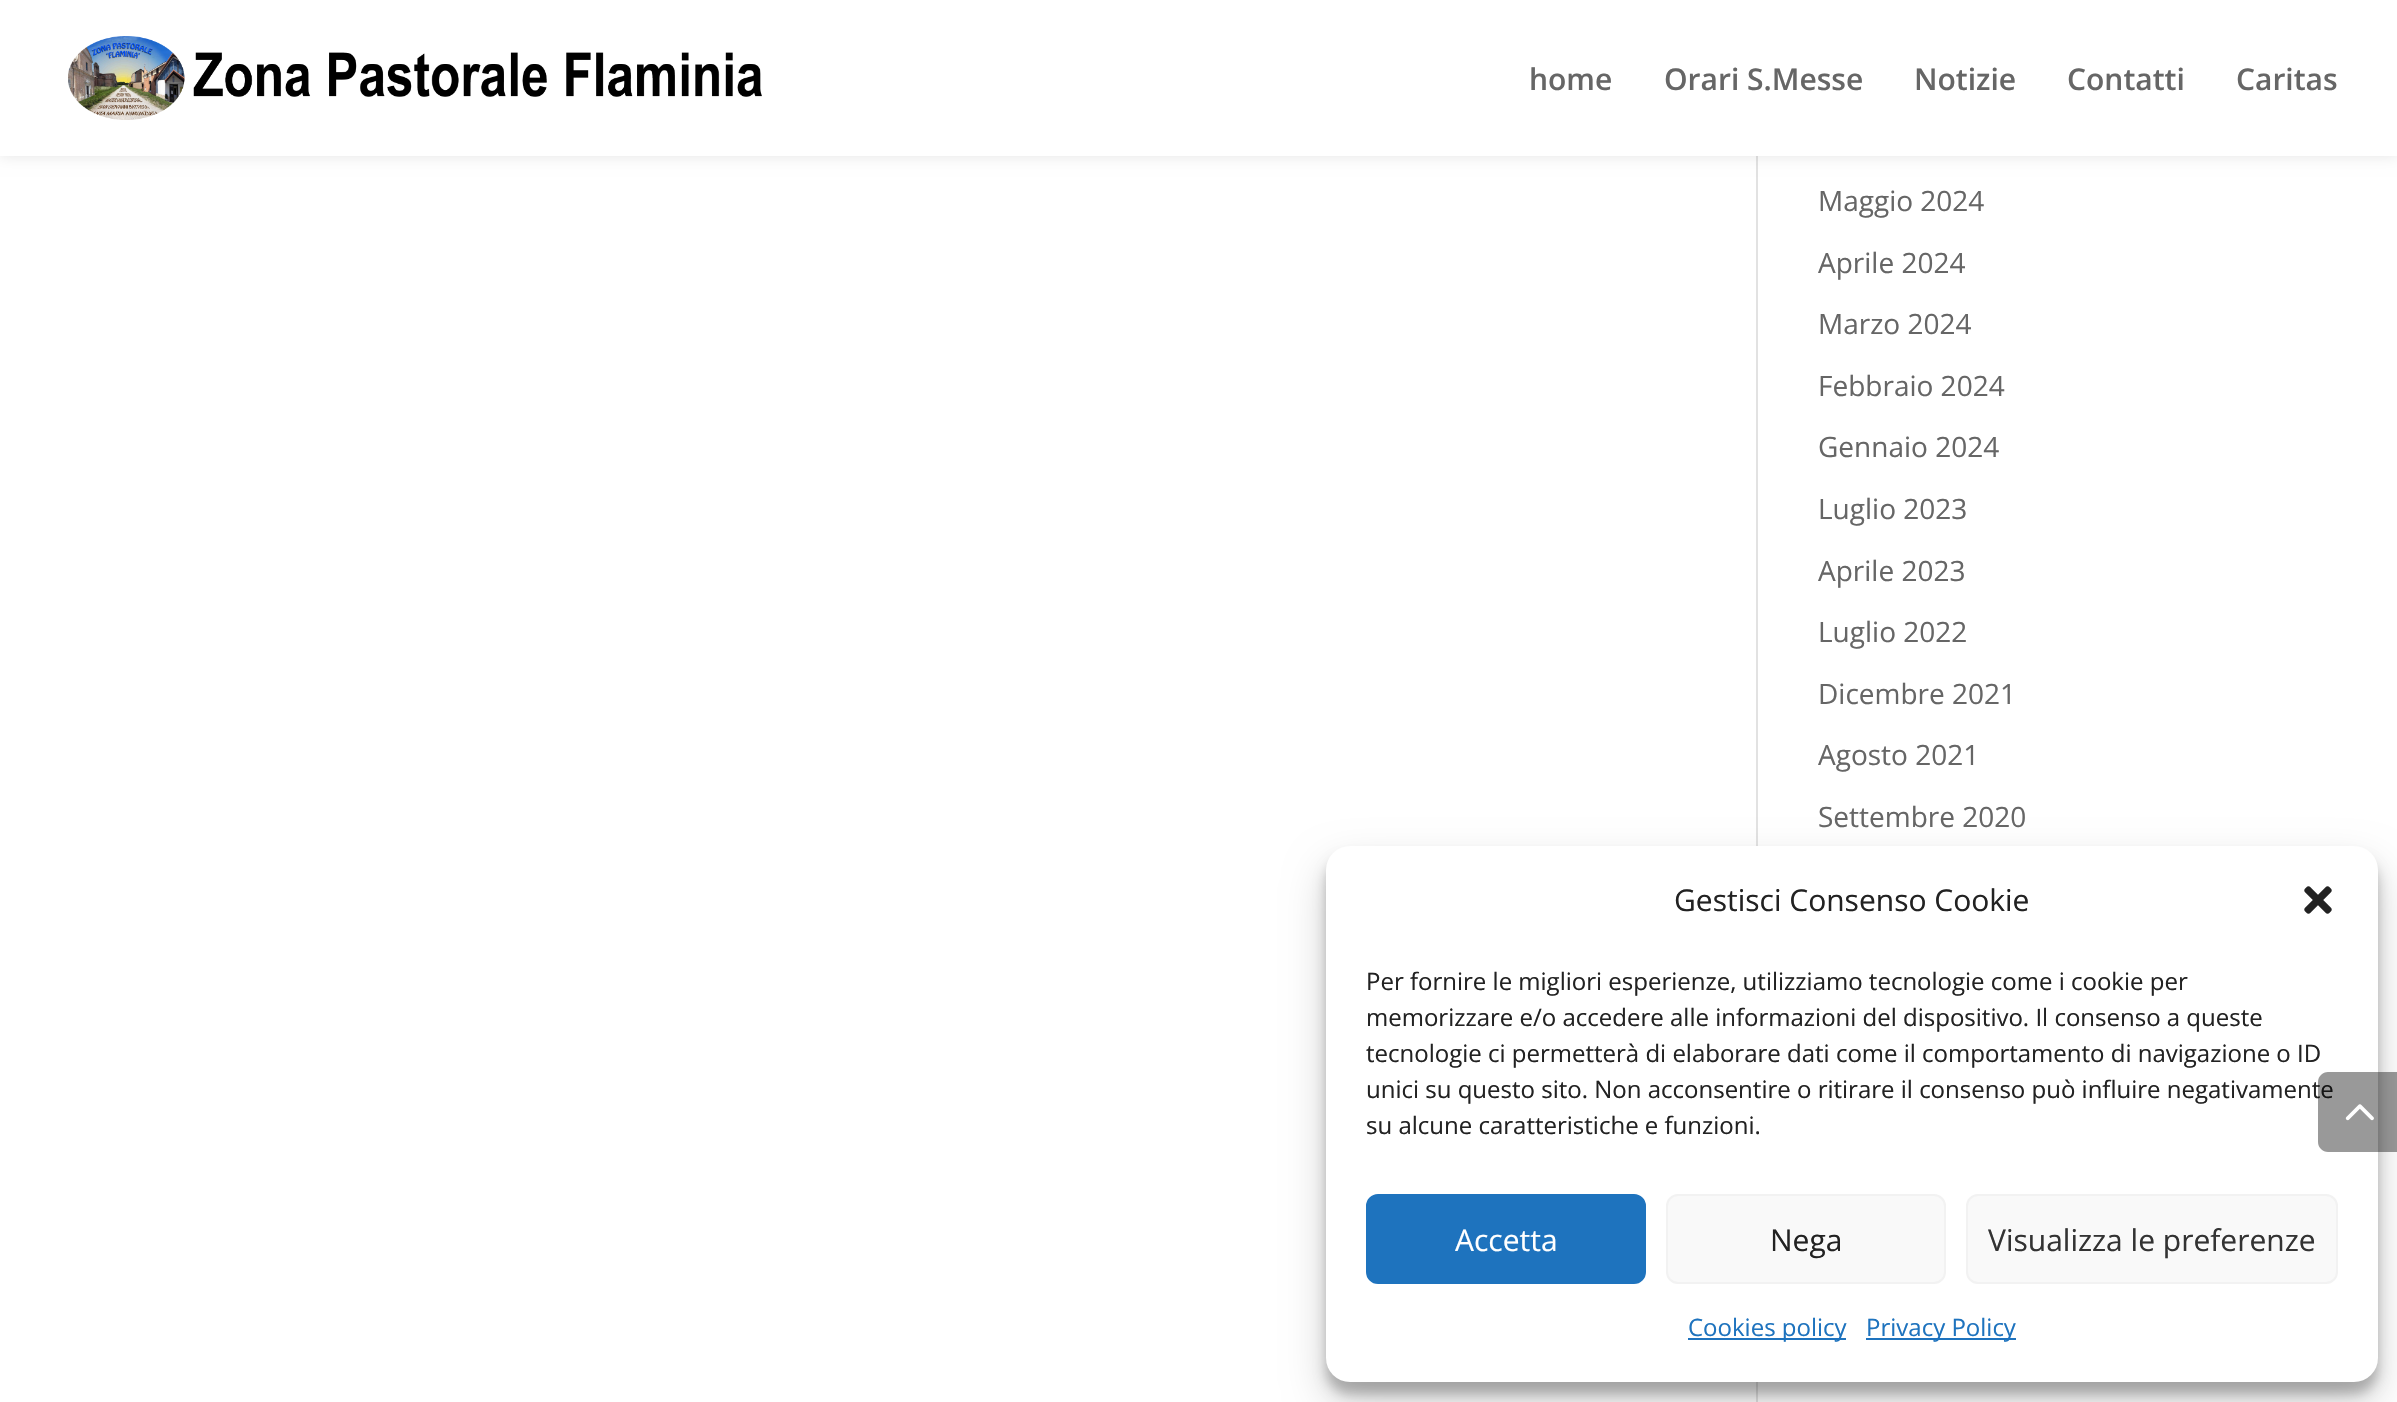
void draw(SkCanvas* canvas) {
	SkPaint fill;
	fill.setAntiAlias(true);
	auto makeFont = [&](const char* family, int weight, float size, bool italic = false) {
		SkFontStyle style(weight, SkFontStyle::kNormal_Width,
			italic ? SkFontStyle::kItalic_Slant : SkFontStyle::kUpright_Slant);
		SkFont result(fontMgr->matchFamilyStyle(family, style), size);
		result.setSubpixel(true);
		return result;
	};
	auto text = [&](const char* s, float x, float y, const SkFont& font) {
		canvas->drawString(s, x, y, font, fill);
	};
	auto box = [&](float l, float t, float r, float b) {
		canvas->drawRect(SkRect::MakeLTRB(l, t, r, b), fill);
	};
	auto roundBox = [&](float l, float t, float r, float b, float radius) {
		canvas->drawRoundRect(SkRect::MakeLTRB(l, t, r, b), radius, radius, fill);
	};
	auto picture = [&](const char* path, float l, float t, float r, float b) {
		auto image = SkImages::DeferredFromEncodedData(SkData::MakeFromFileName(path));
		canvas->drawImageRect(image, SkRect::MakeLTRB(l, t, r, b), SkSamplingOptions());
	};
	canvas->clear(0xFFFFFFFF);
	fill.setColor(0xFFE2E2E2);
	box(1756, 156, 1758, 1402);
	fill.setColor(0x1A000000);
	fill.setMaskFilter(SkMaskFilter::MakeBlur(kNormal_SkBlurStyle, 7));
	canvas->drawRect(SkRect::MakeLTRB(0, 0, 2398, 156), fill);
	fill.setMaskFilter(nullptr);
	fill.setColor(0xFFFFFFFF);
	box(0, 0, 2397, 156);
	picture("image0.png", 68, 36, 762, 120);
	fill.setColor(0x3B000000);
	fill.setMaskFilter(SkMaskFilter::MakeBlur(kNormal_SkBlurStyle, 6));
	canvas->drawRoundRect(SkRect::MakeLTRB(1326, 858, 2378, 1394), 24, 24, fill);
	fill.setMaskFilter(nullptr);
	fill.setColor(0x30000000);
	fill.setMaskFilter(SkMaskFilter::MakeBlur(kNormal_SkBlurStyle, 20));
	canvas->drawRoundRect(SkRect::MakeLTRB(1326, 866, 2378, 1402), 24, 24, fill);
	fill.setMaskFilter(nullptr);
	fill.setColor(0xFFFFFFFF);
	roundBox(1326, 846, 2378, 1382, 24);
	picture("image2.png", 2304, 886, 2332, 914);
	fill.setColor(0xFF1E73BE);
	canvas->drawRoundRect(SkRect::MakeLTRB(1367, 1195, 1645, 1283), 11, 11, fill);
	fill.setStyle(SkPaint::kStroke_Style);
	fill.setStrokeWidth(2);
	canvas->drawRoundRect(SkRect::MakeLTRB(1367, 1195, 1645, 1283), 11, 11, fill);
	fill.setStyle(SkPaint::kFill_Style);
	fill.setColor(0xFFF9F9F9);
	canvas->drawRoundRect(SkRect::MakeLTRB(1667, 1195, 1945, 1283), 11, 11, fill);
	fill.setStyle(SkPaint::kStroke_Style);
	fill.setColor(0xFFF2F2F2);
	canvas->drawRoundRect(SkRect::MakeLTRB(1667, 1195, 1945, 1283), 11, 11, fill);
	fill.setStyle(SkPaint::kFill_Style);
	fill.setColor(0xFFF9F9F9);
	canvas->drawRoundRect(SkRect::MakeLTRB(1967, 1195, 2337, 1283), 11, 11, fill);
	fill.setStyle(SkPaint::kStroke_Style);
	fill.setColor(0xFFF2F2F2);
	canvas->drawRoundRect(SkRect::MakeLTRB(1967, 1195, 2337, 1283), 11, 11, fill);
	fill.setStyle(SkPaint::kFill_Style);
	fill.setColor(0xFF1E73BE);
	box(1688, 1338, 1846, 1340);
	box(1866, 1338, 2016, 1340);
	auto font1 = makeFont("Open Sans", 600, 30);
	fill.setColor(0xFF666666);
	text("home", 1529, 90, font1);
	text("Orari S.Messe", 1664, 90, font1);
	text("Notizie", 1914, 90, font1);
	text("Contatti", 2067, 90, font1);
	text("Caritas", 2236, 90, font1);
	auto font2 = makeFont("Open Sans", 400, 28);
	text("Maggio 2024", 1818, 211, font2);
	text("Aprile 2024", 1818, 273, font2);
	text("Marzo 2024", 1818, 334, font2);
	text("Febbraio 2024", 1818, 396, font2);
	text("Gennaio 2024", 1818, 457, font2);
	text("Luglio 2023", 1818, 519, font2);
	text("Aprile 2023", 1818, 581, font2);
	text("Luglio 2022", 1818, 642, font2);
	text("Dicembre 2021", 1818, 704, font2);
	text("Agosto 2021", 1818, 765, font2);
	text("Settembre 2020", 1818, 827, font2);
	auto font3 = makeFont("Open Sans", 400, 30);
	fill.setColor(0xFF222222);
	text("Gestisci Consenso Cookie", 1674, 911, font3);
	auto font4 = makeFont("Open Sans", 400, 24);
	text("Per fornire le migliori esperienze, utilizziamo tecnologie come i cookie per", 1366, 990, font4);
	text("memorizzare e/o accedere alle informazioni del dispositivo. Il consenso a queste", 1366, 1026, font4);
	text("tecnologie ci permetterà di elaborare dati come il comportamento di navigazione o ID", 1366, 1062, font4);
	text("unici su questo sito. Non acconsentire o ritirare il consenso può influire negativamente", 1366, 1098, font4);
	fill.setColor(0x66000000);
	canvas->drawPath(SkPathBuilder().moveTo(2328, 1072).lineTo(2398, 1072).lineTo(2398, 1152).lineTo(2328, 1152).cubicTo(2322.5f, 1152, 2318, 1147.5f, 2318, 1142).lineTo(2318, 1082).cubicTo(2318, 1076.5f, 2322.5f, 1072, 2328, 1072).close().detach(), fill);
	picture("image1.png", 2345, 1104, 2374, 1121);
	fill.setColor(0xFF222222);
	text("su alcune caratteristiche e funzioni.", 1366, 1134, font4);
	fill.setColor(0xFFFFFFFF);
	text("Accetta", 1455, 1251, font3);
	fill.setColor(0xFF222222);
	text("Nega", 1770, 1251, font3);
	fill.setColor(0xFF333333);
	text("Visualizza le preferenze", 1988, 1251, font3);
	fill.setColor(0xFF1E73BE);
	text("Cookies policy", 1688, 1336, font4);
	text("Privacy Policy", 1866, 1336, font4);
}
